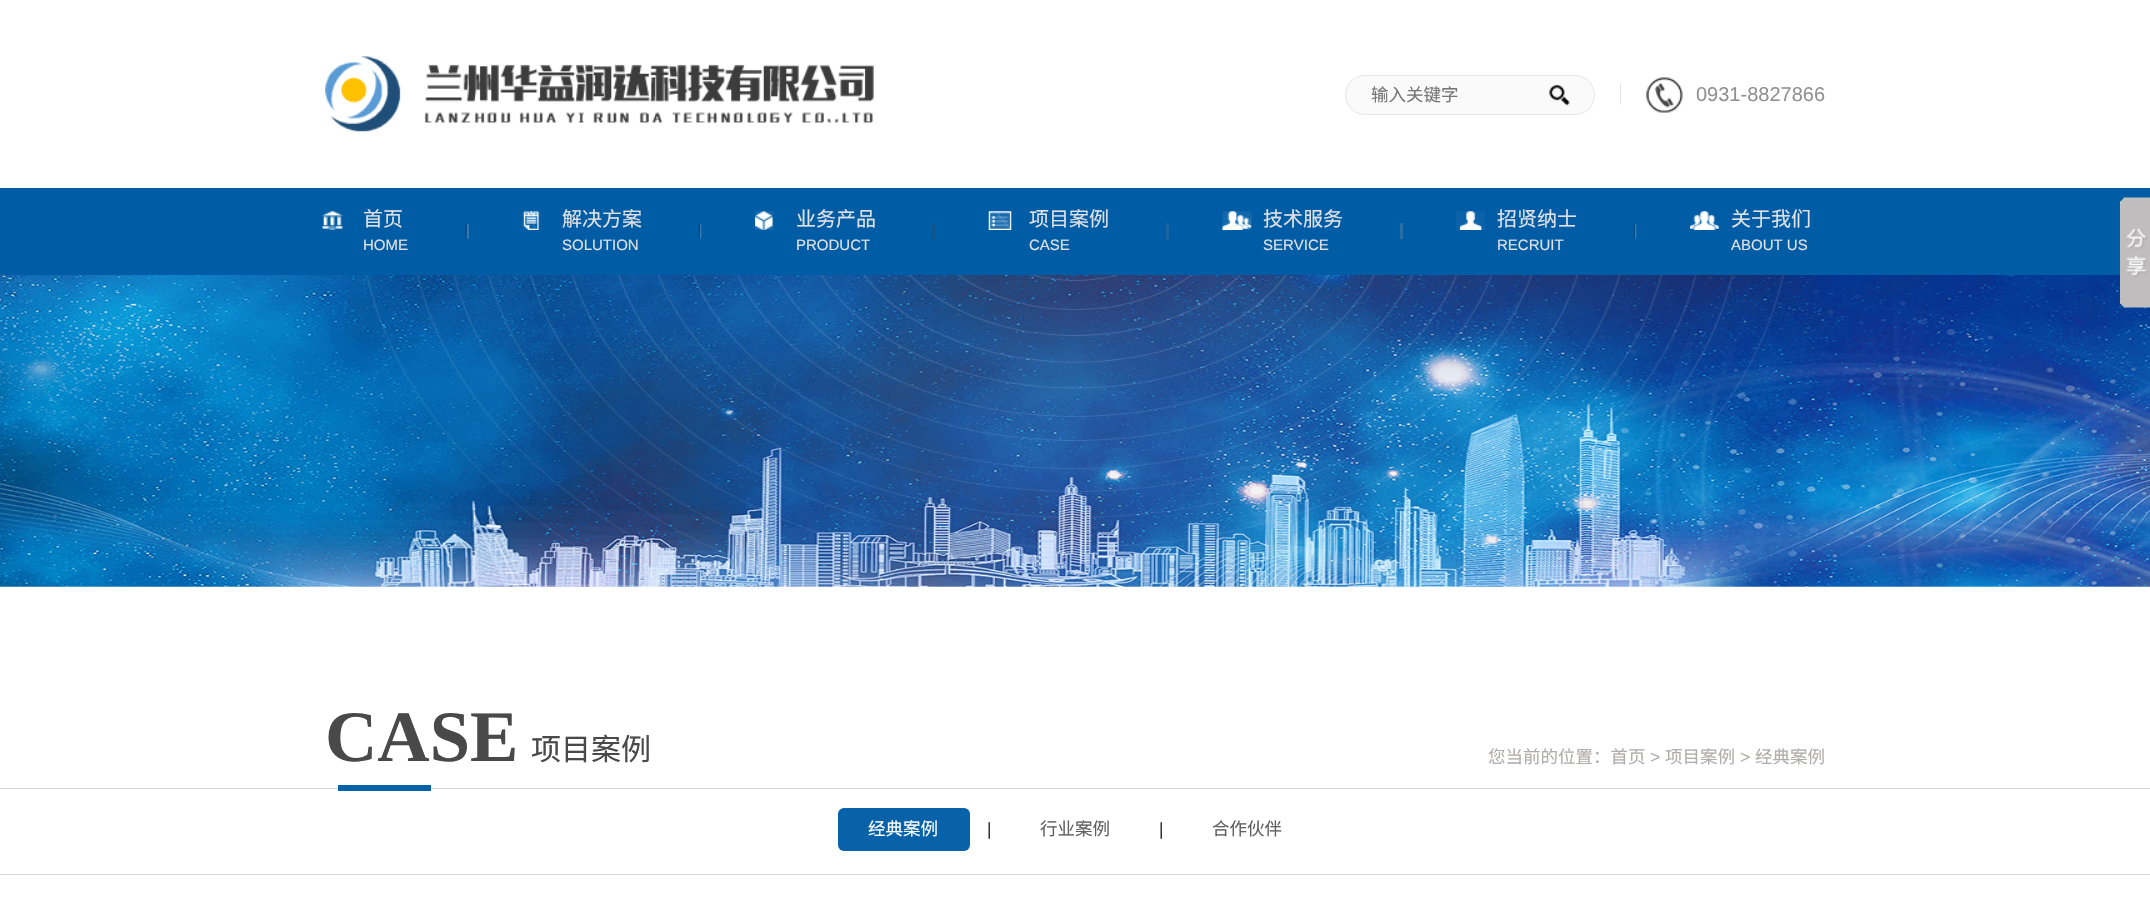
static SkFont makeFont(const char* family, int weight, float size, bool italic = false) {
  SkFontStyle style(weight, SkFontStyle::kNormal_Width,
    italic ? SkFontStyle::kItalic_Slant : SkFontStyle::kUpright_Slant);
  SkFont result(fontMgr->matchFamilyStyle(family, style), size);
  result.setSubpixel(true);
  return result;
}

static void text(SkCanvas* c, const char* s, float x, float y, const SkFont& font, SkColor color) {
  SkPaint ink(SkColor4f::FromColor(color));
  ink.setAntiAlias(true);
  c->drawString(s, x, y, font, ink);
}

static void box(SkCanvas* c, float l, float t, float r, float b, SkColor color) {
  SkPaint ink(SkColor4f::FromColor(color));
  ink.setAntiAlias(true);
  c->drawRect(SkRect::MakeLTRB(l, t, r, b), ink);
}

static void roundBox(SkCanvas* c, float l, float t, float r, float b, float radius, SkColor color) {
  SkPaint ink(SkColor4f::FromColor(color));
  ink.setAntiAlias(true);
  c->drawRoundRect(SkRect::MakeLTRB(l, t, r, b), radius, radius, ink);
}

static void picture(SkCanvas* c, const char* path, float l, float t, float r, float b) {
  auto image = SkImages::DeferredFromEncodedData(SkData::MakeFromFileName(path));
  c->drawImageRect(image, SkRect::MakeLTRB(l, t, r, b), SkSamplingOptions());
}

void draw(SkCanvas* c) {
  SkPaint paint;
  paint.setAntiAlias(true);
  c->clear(0xffffffff);
  picture(c, "img_01.png", 325, 56, 874, 132);
  paint.setColor(0xfffafafa);
  c->drawRoundRect(SkRect::MakeLTRB(1345.5f, 75.5f, 1594.5f, 114.5f), 19.5f, 19.5f, paint);
  paint.setStyle(SkPaint::kStroke_Style);
  paint.setStrokeWidth(1);
  paint.setColor(0xffe6e6e6);
  c->drawRoundRect(SkRect::MakeLTRB(1345.5f, 75.5f, 1594.5f, 114.5f), 19.5f, 19.5f, paint);
  SkFont face1 = makeFont("Noto Sans CJK SC", 400, 17.5f);
  text(c, "输入关键字", 1371, 101, face1, 0xff757575);
  picture(c, "img_02.png", 1549, 84, 1570, 106);
  box(c, 1620, 83, 1621, 105, 0xffe6e6e6);
  picture(c, "img_03.png", 1646, 77, 1683, 113);
  SkFont face2 = makeFont("Liberation Sans", 400, 20);
  text(c, "0931-8827866", 1696, 101, face2, 0xff919191);
  box(c, 0, 188, 2150, 275, 0xff005ca5);
  picture(c, "img_04.png", 322, 211, 343, 230);
  SkFont face3 = makeFont("Noto Sans CJK SC", 400, 20);
  text(c, "首页", 363, 226, face3, 0xffe0e1e4);
  SkFont face4 = makeFont("Liberation Sans", 400, 15);
  text(c, "HOME", 363, 250, face4, 0xffe0e1e4);
  picture(c, "img_05.png", 465, 223, 469, 239);
  picture(c, "img_06.png", 522, 211, 541, 230);
  text(c, "解决方案", 562, 226, face3, 0xffe0e1e4);
  text(c, "SOLUTION", 562, 250, face4, 0xffe0e1e4);
  picture(c, "img_07.png", 698, 223, 702, 239);
  picture(c, "img_08.png", 755, 211, 774, 230);
  text(c, "业务产品", 796, 226, face3, 0xffe0e1e4);
  text(c, "PRODUCT", 796, 250, face4, 0xffe0e1e4);
  box(c, 932, 223, 935, 239, 0xff0f568e);
  picture(c, "img_09.png", 988, 211, 1012, 230);
  text(c, "项目案例", 1029, 226, face3, 0xffe0e1e4);
  text(c, "CASE", 1029, 250, face4, 0xffe0e1e4);
  box(c, 1166, 223, 1169, 239, 0xff1e659d);
  picture(c, "img_10.png", 1222, 211, 1252, 230);
  text(c, "技术服务", 1263, 226, face3, 0xffe0e1e4);
  text(c, "SERVICE", 1263, 250, face4, 0xffe0e1e4);
  box(c, 1400, 223, 1403, 239, 0xff286fa7);
  picture(c, "img_11.png", 1456, 211, 1485, 230);
  text(c, "招贤纳士", 1497, 226, face3, 0xffe0e1e4);
  text(c, "RECRUIT", 1497, 250, face4, 0xffe0e1e4);
  picture(c, "img_07.png", 1633, 223, 1637, 239);
  picture(c, "img_12.png", 1690, 211, 1719, 230);
  text(c, "关于我们", 1731, 226, face3, 0xffe0e1e4);
  text(c, "ABOUT US", 1731, 250, face4, 0xffe0e1e4);
  picture(c, "img_14.png", 0, 275, 2150, 588);
  picture(c, "img_13.png", 2120, 197, 2150, 308);
  box(c, 0, 874, 2150, 875, 0xffd8d9d8);
  SkFont face5 = makeFont("Liberation Serif", 700, 72.5f);
  text(c, "CASE", 325, 761, face5, 0xff494949);
  SkFont face6 = makeFont("Noto Sans CJK SC", 400, 30);
  text(c, "项目案例", 531, 760, face6, 0xff494949);
  text(c, "您当前的位置：首页", 1488, 763, face1, 0xffb0aeac);
  SkFont face7 = makeFont("Liberation Sans", 400, 17.5f);
  text(c, ">", 1650, 763, face7, 0xffb0aeac);
  text(c, "项目案例", 1665, 763, face1, 0xffb0aeac);
  text(c, ">", 1740, 763, face7, 0xffb0aeac);
  text(c, "经典案例", 1755, 763, face1, 0xffb0aeac);
  box(c, 0, 788, 2150, 789, 0xffd6d6d6);
  box(c, 338, 785, 431, 791, 0xff0862a9);
  roundBox(c, 838, 808, 970, 851, 6, 0xff0862a9);
  text(c, "经典案例", 868, 835, face1, 0xffffffff);
  text(c, "|", 987, 835, face7, 0xff333333);
  text(c, "行业案例", 1040, 835, face1, 0xff5f5f5f);
  text(c, "|", 1159, 835, face7, 0xff333333);
  text(c, "合作伙伴", 1212, 835, face1, 0xff5f5f5f);
}
